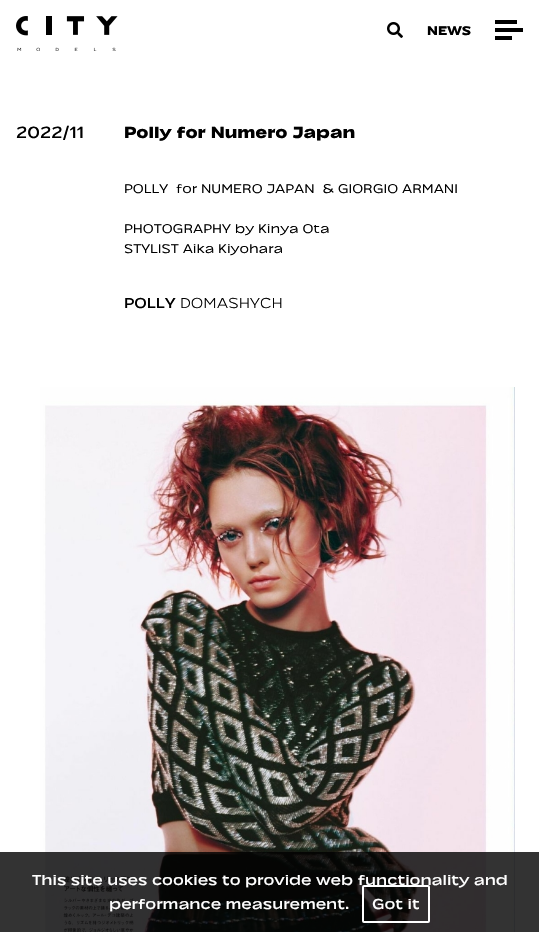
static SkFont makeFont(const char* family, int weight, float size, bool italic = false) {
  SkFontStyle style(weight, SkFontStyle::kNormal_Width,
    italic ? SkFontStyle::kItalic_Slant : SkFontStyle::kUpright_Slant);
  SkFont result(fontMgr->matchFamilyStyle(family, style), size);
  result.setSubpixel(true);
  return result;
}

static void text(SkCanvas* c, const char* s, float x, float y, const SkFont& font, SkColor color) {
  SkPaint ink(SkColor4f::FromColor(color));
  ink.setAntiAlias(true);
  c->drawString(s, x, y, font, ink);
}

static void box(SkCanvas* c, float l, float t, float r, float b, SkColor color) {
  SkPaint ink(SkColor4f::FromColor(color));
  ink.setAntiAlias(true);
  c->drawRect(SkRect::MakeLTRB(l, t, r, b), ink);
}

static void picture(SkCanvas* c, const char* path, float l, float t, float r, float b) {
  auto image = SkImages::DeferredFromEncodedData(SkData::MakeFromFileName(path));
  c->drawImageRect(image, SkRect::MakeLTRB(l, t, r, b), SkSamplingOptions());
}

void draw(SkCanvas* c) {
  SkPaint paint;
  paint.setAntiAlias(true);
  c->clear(0xffffffff);
  picture(c, "img_01.png", 16, 16, 118, 51);
  picture(c, "img_02.png", 387, 22, 403, 38);
  SkFont face1 = makeFont("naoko", 700, 14);
  text(c, "NEWS", 427, 35, face1, 0xff000000);
  box(c, 495, 20, 517, 24, 0xff000000);
  box(c, 495, 28, 523, 32, 0xff000000);
  box(c, 495, 36, 512, 40, 0xff000000);
  SkFont face2 = makeFont("naoko", 400, 18);
  text(c, "2022/11", 16, 138, face2, 0xff000000);
  SkFont face3 = makeFont("naoko", 700, 18);
  text(c, "Polly for Numero Japan", 124, 138, face3, 0xff000000);
  SkFont face4 = makeFont("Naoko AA", 300, 14);
  text(c, "POLLY  for NUMERO JAPAN  & GIORGIO ARMANI", 124, 193, face4, 0xff000000);
  text(c, "PHOTOGRAPHY by Kinya Ota", 124, 233, face4, 0xff000000);
  text(c, "STYLIST Aika Kiyohara", 124, 253, face4, 0xff000000);
  SkFont face5 = makeFont("naoko", 400, 16);
  text(c, "POLLY", 124, 308, face5, 0xff000000);
  SkFont face6 = makeFont("Naoko AA", 200, 16);
  text(c, "DOMASHYCH", 180, 308, face6, 0xff000000);
  picture(c, "img_03.png", 40, 387, 515, 932);
  box(c, 0, 852, 539, 932, 0xcc000000);
  text(c, "This site uses cookies to provide web functionality and", 32, 885, face5, 0xffffffff);
  text(c, "performance measurement.", 109, 909, face5, 0xffffffff);
  paint.setStyle(SkPaint::kStroke_Style);
  paint.setStrokeWidth(2);
  paint.setColor(0xffffffff);
  c->drawRoundRect(SkRect::MakeLTRB(363, 886, 429, 922), 1, 1, paint);
  text(c, "Got it", 372, 909, face5, 0xffffffff);
}
